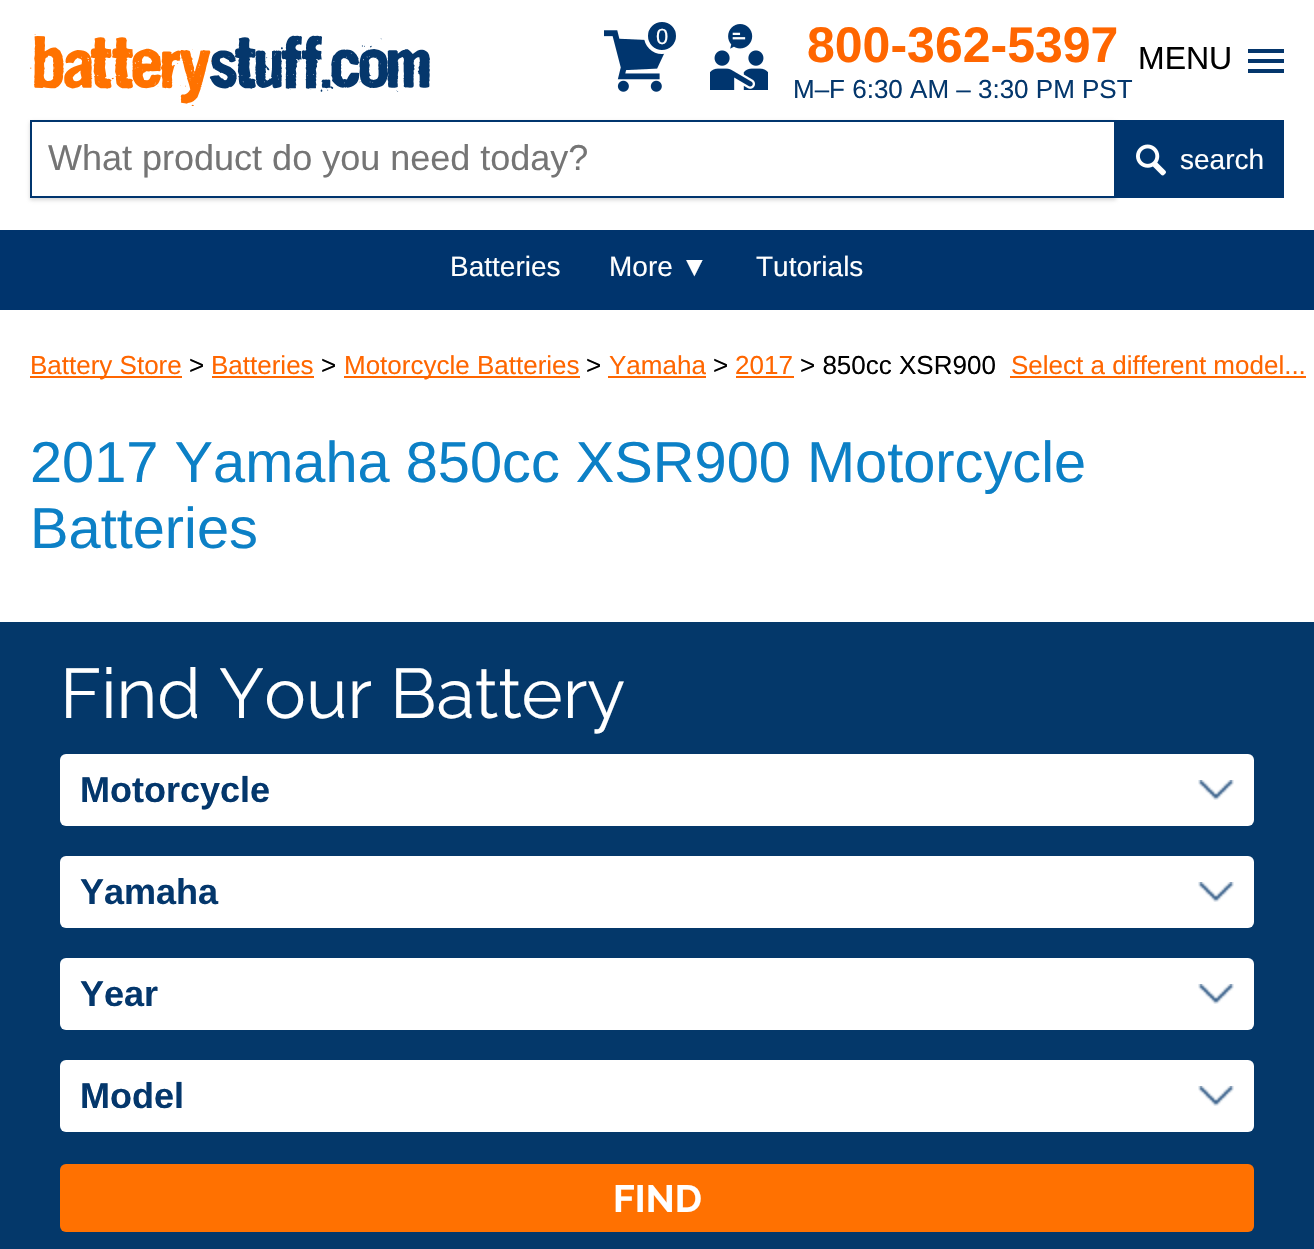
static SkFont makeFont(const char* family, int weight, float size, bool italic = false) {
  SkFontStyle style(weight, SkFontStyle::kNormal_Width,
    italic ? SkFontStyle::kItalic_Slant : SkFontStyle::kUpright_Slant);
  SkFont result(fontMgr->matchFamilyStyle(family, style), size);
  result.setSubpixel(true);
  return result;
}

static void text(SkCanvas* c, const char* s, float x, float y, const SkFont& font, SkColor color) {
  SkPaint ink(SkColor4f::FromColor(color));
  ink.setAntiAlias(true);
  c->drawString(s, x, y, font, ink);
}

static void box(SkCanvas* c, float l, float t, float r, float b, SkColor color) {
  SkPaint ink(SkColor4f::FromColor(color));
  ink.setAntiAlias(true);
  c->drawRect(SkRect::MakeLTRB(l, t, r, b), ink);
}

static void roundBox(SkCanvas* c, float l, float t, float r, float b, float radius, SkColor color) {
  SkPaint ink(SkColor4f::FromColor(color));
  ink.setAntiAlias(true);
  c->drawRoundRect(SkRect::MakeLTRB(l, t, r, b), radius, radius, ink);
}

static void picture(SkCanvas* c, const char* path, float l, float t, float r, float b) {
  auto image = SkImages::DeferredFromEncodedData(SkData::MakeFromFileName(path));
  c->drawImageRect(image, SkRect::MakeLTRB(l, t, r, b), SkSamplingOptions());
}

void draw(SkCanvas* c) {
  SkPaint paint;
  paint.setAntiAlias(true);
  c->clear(0xffffffff);
  picture(c, "img_01.png", 30, 34, 430, 106);
  picture(c, "img_02.png", 604, 30, 665, 92);
  paint.setColor(0xff00356e);
  c->drawCircle(662, 36, 16, paint);
  paint.setStyle(SkPaint::kStroke_Style);
  paint.setStrokeWidth(4);
  paint.setColor(0xffffffff);
  c->drawCircle(662, 36, 16, paint);
  SkFont face1 = makeFont("Liberation Sans", 400, 22);
  text(c, "0", 656, 44, face1, 0xffffffff);
  picture(c, "img_03.png", 710, 24, 768, 90);
  SkFont face2 = makeFont("Liberation Sans", 700, 50);
  text(c, "800-362-5397", 807, 62, face2, 0xffff6600);
  SkFont face3 = makeFont("Liberation Sans", 400, 26);
  text(c, "M–F 6:30 AM – 3:30 PM PST", 793, 98, face3, 0xff04376c);
  SkFont face4 = makeFont("Liberation Sans", 400, 32);
  text(c, "MENU", 1138, 69, face4, 0xff000000);
  box(c, 1248, 49, 1284, 53, 0xff04366c);
  box(c, 1248, 59, 1284, 63, 0xff04366c);
  box(c, 1248, 69, 1284, 73, 0xff04366c);
  c->save();
  c->clipPath(SkPathBuilder(SkPathFillType::kEvenOdd).moveTo(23, 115).lineTo(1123, 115).lineTo(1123, 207).lineTo(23, 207).close().moveTo(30, 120).lineTo(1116, 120).lineTo(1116, 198).lineTo(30, 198).close().detach(), true);
  paint.setStyle(SkPaint::kFill_Style);
  paint.setColor(0x80aaaaaa);
  paint.setMaskFilter(SkMaskFilter::MakeBlur(kNormal_SkBlurStyle, 2));
  c->drawRect(SkRect::MakeLTRB(30, 122, 1116, 200), paint);
  paint.setMaskFilter(nullptr);
  c->restore();
  paint.setStyle(SkPaint::kStroke_Style);
  paint.setStrokeWidth(2);
  paint.setColor(0xff00356e);
  c->drawRect(SkRect::MakeLTRB(31, 121, 1115, 197), paint);
  SkFont face5 = makeFont("Liberation Sans", 400, 36);
  text(c, "What product do you need today?", 48, 170, face5, 0xff757575);
  box(c, 1116, 120, 1284, 198, 0xff00356e);
  picture(c, "img_04.png", 1136, 144, 1166, 176);
  SkFont face6 = makeFont("Liberation Sans", 400, 28);
  text(c, "search", 1180, 169, face6, 0xffffffff);
  box(c, 0, 230, 1314, 310, 0xff00346d);
  text(c, "Batteries", 450, 276, face6, 0xffffffff);
  text(c, "More ▼", 609, 276, face6, 0xffffffff);
  text(c, "Tutorials", 756, 276, face6, 0xffffffff);
  box(c, 30, 376, 182, 378, 0xffff6600);
  text(c, "Battery Store", 30, 374, face3, 0xffff6600);
  text(c, ">", 189, 374, face3, 0xff000000);
  text(c, "Batteries", 211, 374, face3, 0xffff6600);
  box(c, 212, 376, 314, 378, 0xffff6600);
  text(c, ">", 321, 374, face3, 0xff000000);
  box(c, 344, 376, 580, 378, 0xffff6600);
  text(c, "Motorcycle Batteries", 344, 374, face3, 0xffff6600);
  text(c, ">", 586, 374, face3, 0xff000000);
  text(c, "Yamaha", 609, 374, face3, 0xffff6600);
  box(c, 608, 376, 706, 378, 0xffff6600);
  text(c, ">", 713, 374, face3, 0xff000000);
  text(c, "2017", 735, 374, face3, 0xffff6600);
  box(c, 736, 376, 794, 378, 0xffff6600);
  text(c, "> 850cc XSR900", 800, 374, face3, 0xff000000);
  text(c, "Select a different model...", 1011, 374, face3, 0xffff6600);
  box(c, 1010, 376, 1306, 378, 0xffff6600);
  SkFont face7 = makeFont("Liberation Sans", 400, 57.75f);
  text(c, "2017 Yamaha 850cc XSR900 Motorcycle", 30, 482, face7, 0xff0c80c6);
  text(c, "Batteries", 30, 548, face7, 0xff0c80c6);
  box(c, 0, 622, 1314, 1249, 0xff04386a);
  SkFont face8 = makeFont("Raleway", 400, 70);
  text(c, "Find Your Battery", 60, 718, face8, 0xffffffff);
  roundBox(c, 60, 754, 1254, 826, 6, 0xffffffff);
  picture(c, "img_05.png", 1198, 780, 1234, 800);
  SkFont face9 = makeFont("Liberation Sans", 700, 36);
  text(c, "Motorcycle", 80, 802, face9, 0xff04376c);
  roundBox(c, 60, 856, 1254, 928, 6, 0xffffffff);
  picture(c, "img_05.png", 1198, 882, 1234, 902);
  text(c, "Yamaha", 80, 904, face9, 0xff04376c);
  roundBox(c, 60, 958, 1254, 1030, 6, 0xffffffff);
  picture(c, "img_05.png", 1198, 984, 1234, 1004);
  text(c, "Year", 80, 1006, face9, 0xff04376c);
  roundBox(c, 60, 1060, 1254, 1132, 6, 0xffffffff);
  picture(c, "img_05.png", 1198, 1086, 1234, 1106);
  text(c, "Model", 80, 1108, face9, 0xff04376c);
  roundBox(c, 60, 1164, 1254, 1232, 6, 0xffff7101);
  SkFont face10 = makeFont("Raleway", 700, 38);
  text(c, "FIND", 613, 1212, face10, 0xffffffff);
}
